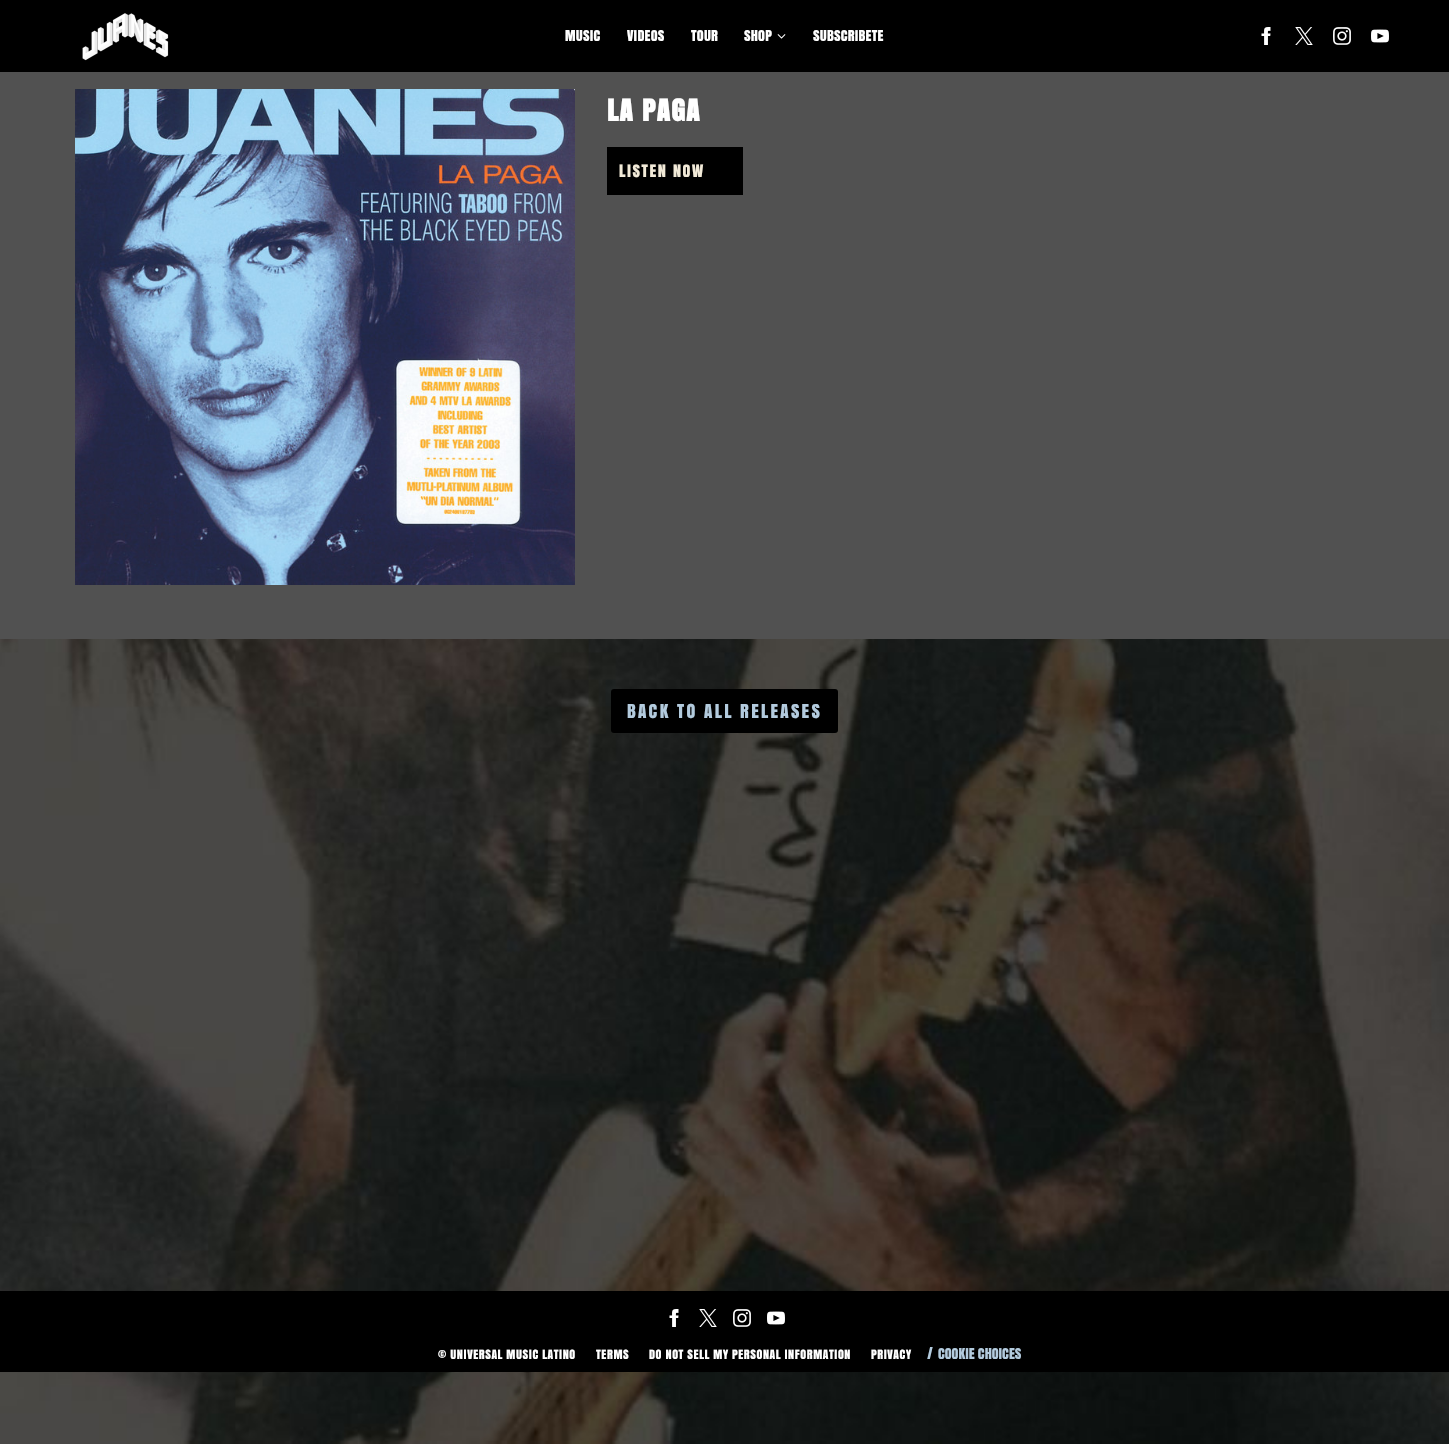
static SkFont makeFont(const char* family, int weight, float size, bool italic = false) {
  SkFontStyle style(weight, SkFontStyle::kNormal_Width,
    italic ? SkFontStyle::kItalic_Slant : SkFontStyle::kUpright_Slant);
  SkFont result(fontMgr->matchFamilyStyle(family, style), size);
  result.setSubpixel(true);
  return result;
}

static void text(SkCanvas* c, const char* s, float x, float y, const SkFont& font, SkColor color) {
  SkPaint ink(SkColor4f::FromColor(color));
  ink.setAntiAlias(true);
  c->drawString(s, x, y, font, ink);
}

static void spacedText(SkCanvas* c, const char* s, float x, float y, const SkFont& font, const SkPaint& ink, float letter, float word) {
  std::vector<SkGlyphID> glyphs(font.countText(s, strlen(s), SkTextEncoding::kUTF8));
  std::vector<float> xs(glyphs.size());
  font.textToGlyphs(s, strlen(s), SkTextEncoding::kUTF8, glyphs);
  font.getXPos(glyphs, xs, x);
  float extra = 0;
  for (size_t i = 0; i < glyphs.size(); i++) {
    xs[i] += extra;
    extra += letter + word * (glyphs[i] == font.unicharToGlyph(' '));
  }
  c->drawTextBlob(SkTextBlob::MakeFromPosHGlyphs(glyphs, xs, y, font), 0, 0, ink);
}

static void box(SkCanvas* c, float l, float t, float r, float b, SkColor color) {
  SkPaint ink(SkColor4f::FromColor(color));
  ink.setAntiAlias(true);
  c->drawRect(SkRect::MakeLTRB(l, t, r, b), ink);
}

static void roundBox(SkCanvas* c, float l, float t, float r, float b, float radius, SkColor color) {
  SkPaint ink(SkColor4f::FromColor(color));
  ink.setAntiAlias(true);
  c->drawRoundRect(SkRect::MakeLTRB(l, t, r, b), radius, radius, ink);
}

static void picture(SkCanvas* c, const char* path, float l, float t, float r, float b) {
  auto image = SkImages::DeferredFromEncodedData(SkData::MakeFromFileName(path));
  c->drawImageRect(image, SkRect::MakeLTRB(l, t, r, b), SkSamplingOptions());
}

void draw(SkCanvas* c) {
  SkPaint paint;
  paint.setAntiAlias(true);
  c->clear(0xffffffff);
  box(c, 0, 0, 1449, 72, 0xff000000);
  picture(c, "img_01.png", 82, 13, 169, 61);
  SkFont face1 = makeFont("Anton", 400, 14);
  paint.setColor(0xffffffff);
  spacedText(c, "MUSIC", 565, 41, face1, paint, 0.25f, 0);
  spacedText(c, "VIDEOS", 627, 41, face1, paint, 0.25f, 0);
  spacedText(c, "TOUR", 691, 41, face1, paint, 0.25f, 0);
  spacedText(c, "SHOP", 744, 41, face1, paint, 0.25f, 0);
  picture(c, "img_02.png", 777, 34, 786, 39);
  spacedText(c, "SUBSCRIBETE", 813, 41, face1, paint, 0.25f, 0);
  picture(c, "img_03.png", 1261, 27, 1271, 45);
  picture(c, "img_04.png", 1295, 27, 1313, 45);
  picture(c, "img_05.png", 1333, 27, 1351, 45);
  picture(c, "img_06.png", 1371, 29, 1389, 43);
  box(c, 0, 72, 1449, 639, 0xff515151);
  picture(c, "img_07.png", 75, 89, 575, 585);
  SkFont face2 = makeFont("Anton", 700, 28);
  spacedText(c, "LA PAGA", 607, 121, face2, paint, 1.5f, 0);
  box(c, 607, 147, 743, 195, 0xff000000);
  SkFont face3 = makeFont("Anton", 400, 16);
  paint.setColor(0xfff2ead8);
  spacedText(c, "LISTEN NOW", 619, 177, face3, paint, 1.6f, 0);
  picture(c, "img_08.png", 0, 639, 1449, 1444);
  roundBox(c, 611, 689, 838, 733, 3, 0xff000000);
  SkFont face4 = makeFont("Anton", 400, 18);
  paint.setColor(0xffb3cbde);
  spacedText(c, "BACK TO ALL RELEASES", 627, 718, face4, paint, 2.3f, 0);
  box(c, 0, 1291, 1449, 1372, 0xff000000);
  picture(c, "img_03.png", 669, 1309, 679, 1327);
  picture(c, "img_04.png", 699, 1309, 717, 1327);
  picture(c, "img_05.png", 733, 1309, 751, 1327);
  picture(c, "img_06.png", 767, 1311, 785, 1325);
  SkFont face5 = makeFont("Anton", 400, 12);
  paint.setColor(0xffffffff);
  spacedText(c, "© UNIVERSAL MUSIC LATINO", 438, 1359, face5, paint, 0.6f, 0);
  spacedText(c, "TERMS", 596, 1359, face5, paint, 0.6f, 0);
  spacedText(c, "DO NOT SELL MY PERSONAL INFORMATION", 649, 1359, face5, paint, 0.6f, 0);
  spacedText(c, "PRIVACY", 871, 1359, face5, paint, 0.6f, 0);
  text(c, "/", 927, 1359, face1, 0xffb3cbde);
  text(c, "COOKIE CHOICES", 938, 1359, face1, 0xffb3cbde);
}
